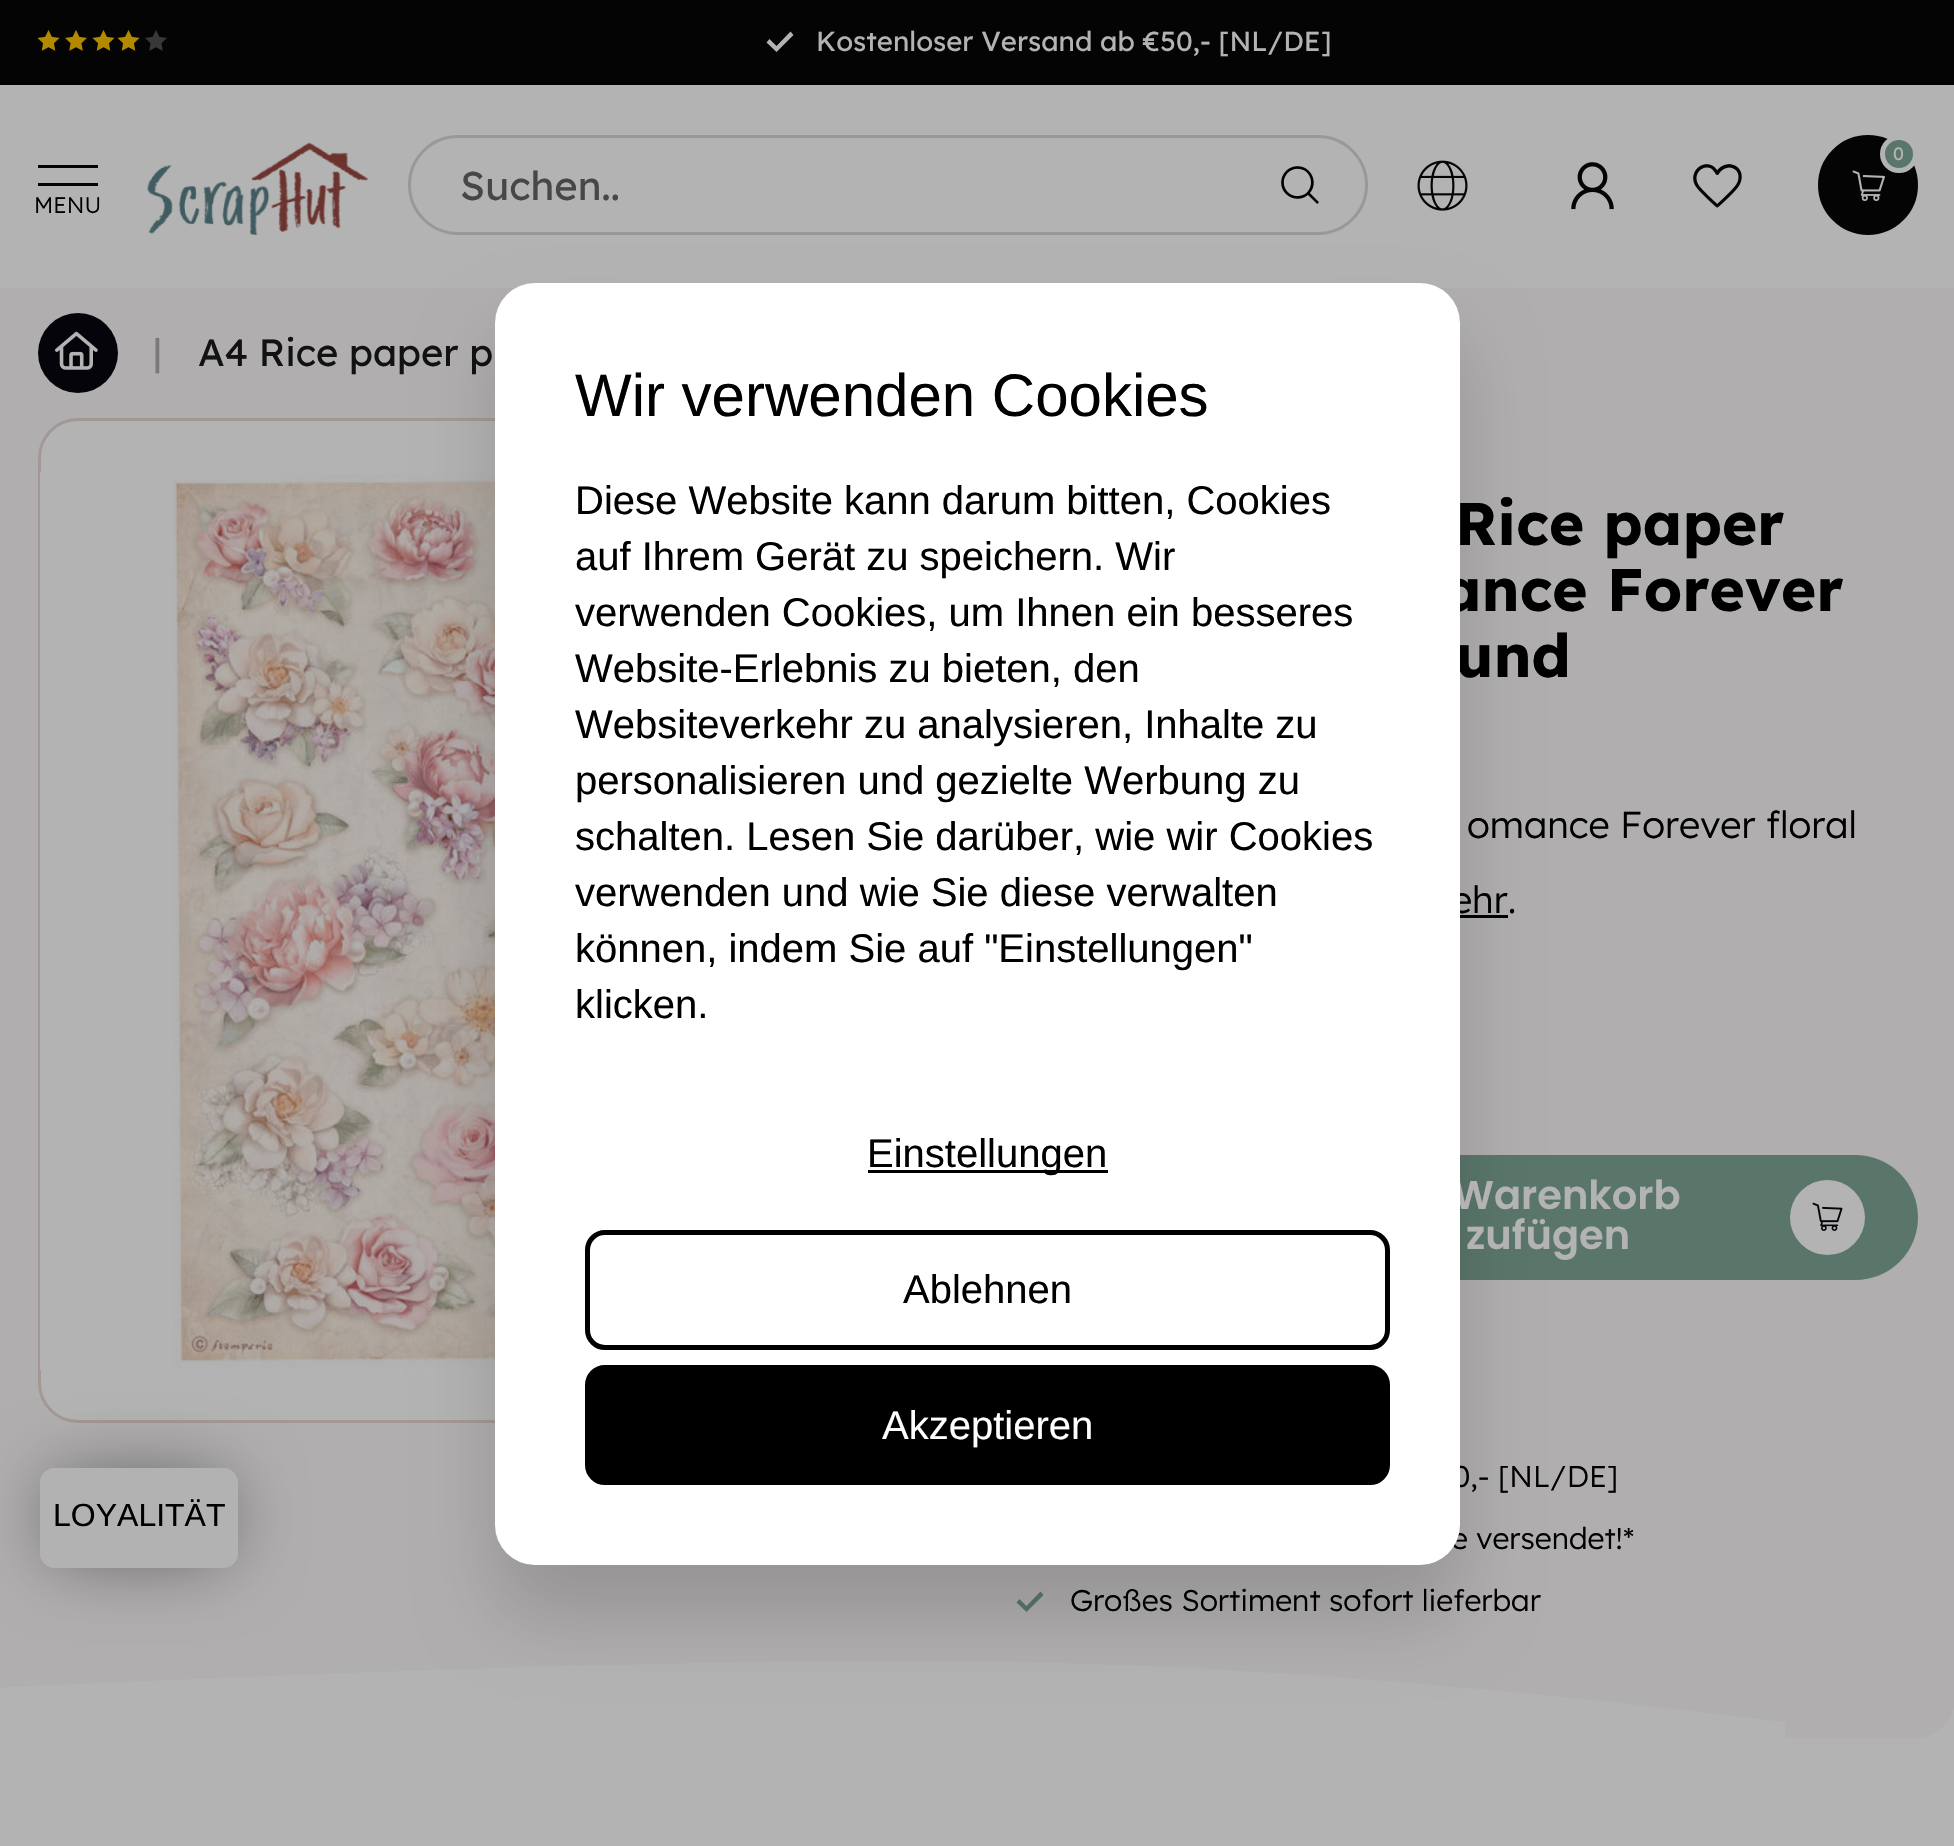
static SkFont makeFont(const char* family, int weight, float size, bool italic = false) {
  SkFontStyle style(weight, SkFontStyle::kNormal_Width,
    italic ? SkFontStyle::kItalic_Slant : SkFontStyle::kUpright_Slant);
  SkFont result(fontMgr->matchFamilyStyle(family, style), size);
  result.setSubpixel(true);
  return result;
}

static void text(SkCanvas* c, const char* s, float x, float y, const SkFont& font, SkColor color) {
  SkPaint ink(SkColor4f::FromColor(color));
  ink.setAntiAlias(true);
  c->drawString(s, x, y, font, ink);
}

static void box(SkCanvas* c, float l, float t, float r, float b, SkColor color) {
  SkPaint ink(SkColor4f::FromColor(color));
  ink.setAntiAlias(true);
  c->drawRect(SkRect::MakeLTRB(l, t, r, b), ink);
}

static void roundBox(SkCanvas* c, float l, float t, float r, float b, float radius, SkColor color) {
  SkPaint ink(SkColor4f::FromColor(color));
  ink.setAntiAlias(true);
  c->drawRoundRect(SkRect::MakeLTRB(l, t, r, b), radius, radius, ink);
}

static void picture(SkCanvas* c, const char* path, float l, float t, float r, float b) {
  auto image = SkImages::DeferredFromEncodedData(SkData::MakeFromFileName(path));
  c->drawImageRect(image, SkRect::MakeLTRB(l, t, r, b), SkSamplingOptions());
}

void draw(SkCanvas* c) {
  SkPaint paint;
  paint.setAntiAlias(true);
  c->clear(0xffb3b3b3);
  box(c, 0, 0, 1954, 85, 0xff040404);
  picture(c, "img_01.png", 37, 30, 60, 51);
  picture(c, "img_02.png", 65, 30, 87, 51);
  picture(c, "img_01.png", 92, 30, 115, 51);
  picture(c, "img_01.png", 117, 30, 140, 51);
  picture(c, "img_03.png", 145, 30, 167, 51);
  paint.setColor(0xffb3b3b3);
  c->drawPath(SkPathBuilder().moveTo(776.5f, 52).lineTo(766.5f, 42.5f).lineTo(769.5f, 39).lineTo(776.5f, 46).lineTo(790.5f, 31.5f).lineTo(793.5f, 35).close().detach(), paint);
  SkFont face1 = makeFont("Lexend", 400, 27.5f);
  text(c, "Kostenloser Versand ab €50,- [NL/DE]", 816, 51, face1, 0xffb3b3b3);
  paint.setColor(0xff040404);
  c->drawCircle(1868, 185, 48.5f, paint);
  paint.setStyle(SkPaint::kStroke_Style);
  paint.setStrokeWidth(3);
  c->drawCircle(1868, 185, 48.5f, paint);
  picture(c, "img_04.png", 1852, 170, 1885, 201);
  paint.setStyle(SkPaint::kFill_Style);
  paint.setColor(0xff5a766a);
  c->drawCircle(1899, 154, 16.5f, paint);
  paint.setStyle(SkPaint::kStroke_Style);
  paint.setStrokeWidth(5);
  paint.setColor(0xffb3b3b3);
  c->drawCircle(1899, 154, 16.5f, paint);
  SkFont face2 = makeFont("Lexend", 400, 18);
  text(c, "0", 1893, 160, face2, 0xffb3b3b3);
  picture(c, "img_05.png", 1417, 160, 1468, 211);
  picture(c, "img_06.png", 1571, 162, 1614, 210);
  picture(c, "img_07.png", 1693, 164, 1742, 208);
  picture(c, "img_08.png", 147, 142, 368, 235);
  paint.setStrokeWidth(3);
  paint.setColor(0xff9b9795);
  c->drawRoundRect(SkRect::MakeLTRB(409.5f, 136.5f, 1366.5f, 233.5f), 48.5f, 48.5f, paint);
  SkFont face3 = makeFont("Lexend", 400, 40);
  text(c, "Suchen..", 460, 200, face3, 0xff474747);
  picture(c, "img_09.png", 1281, 166, 1319, 204);
  box(c, 38, 165, 98, 168, 0xff040404);
  box(c, 38, 183, 98, 186, 0xff040404);
  SkFont face4 = makeFont("Lexend", 300, 22.5f);
  text(c, "MENU", 34, 213, face4, 0xff000000);
  box(c, 0, 288, 1954, 418, 0xffb0aeae);
  paint.setStyle(SkPaint::kFill_Style);
  paint.setColor(0xff04040a);
  c->drawCircle(78, 353, 40, paint);
  picture(c, "img_10.png", 55, 331, 98, 370);
  SkFont face5 = makeFont("Lexend", 400, 38);
  text(c, "|", 153, 366, face5, 0xff7b7a7a);
  text(c, "A4 Rice paper p", 198, 366, face5, 0xff121212);
  paint.setColor(0xffb0aeae);
  c->drawPath(SkPathBuilder().moveTo(0, 418).lineTo(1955, 418).lineTo(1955, 1698).cubicTo(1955, 1720, 1937, 1738, 1915, 1738).lineTo(40, 1738).cubicTo(18, 1738, 0, 1720, 0, 1698).close().detach(), paint);
  paint.setColor(0xffb3b3b3);
  c->drawRoundRect(SkRect::MakeLTRB(39.5f, 419.5f, 938.5f, 1421.5f), 38.5f, 38.5f, paint);
  paint.setStyle(SkPaint::kStroke_Style);
  paint.setColor(0xffa39895);
  c->drawRoundRect(SkRect::MakeLTRB(39.5f, 419.5f, 938.5f, 1421.5f), 38.5f, 38.5f, paint);
  picture(c, "img_11.png", 40, 472, 495, 1371);
  c->save();
  c->clipRect(SkRect::MakeLTRB(0, 1660, 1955, 1738));
  paint.setStyle(SkPaint::kFill_Style);
  paint.setColor(0xffb3b3b3);
  c->drawPath(SkPathBuilder(SkPathFillType::kEvenOdd).moveTo(1785, 1722).cubicTo(1536, 1692, 1242, 1662, 940, 1661).lineTo(873, 1661).cubicTo(533, 1662, 111, 1682, -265, 1700).cubicTo(-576, 1715, -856, 1729, -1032, 1729).cubicTo(-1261, 1729, -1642, 1715, -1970, 1703).cubicTo(-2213, 1694, -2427, 1686, -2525, 1686).lineTo(-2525, 1739).lineTo(1785, 1739).close().detach(), paint);
  c->restore();
  c->save();
  c->clipPath(SkPathBuilder(SkPathFillType::kEvenOdd).moveTo(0, 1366).lineTo(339, 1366).lineTo(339, 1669).lineTo(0, 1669).close().moveTo(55, 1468).lineTo(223, 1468).cubicTo(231.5f, 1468, 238, 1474.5f, 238, 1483).lineTo(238, 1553).cubicTo(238, 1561.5f, 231.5f, 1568, 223, 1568).lineTo(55, 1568).cubicTo(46.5f, 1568, 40, 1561.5f, 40, 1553).lineTo(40, 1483).cubicTo(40, 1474.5f, 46.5f, 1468, 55, 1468).close().detach(), true);
  paint.setColor(0x80000000);
  paint.setMaskFilter(SkMaskFilter::MakeBlur(kNormal_SkBlurStyle, 37.5f));
  c->drawRoundRect(SkRect::MakeLTRB(53, 1480, 225, 1555), 2.5f, 2.5f, paint);
  paint.setMaskFilter(nullptr);
  c->restore();
  roundBox(c, 40, 1468, 238, 1568, 15, 0xe6b3b3b3);
  SkFont face6 = makeFont("Liberation Sans", 400, 32);
  text(c, "LOYALITÄT", 53, 1526, face6, 0xff000000);
  box(c, 1460, 915, 1508, 918, 0xff000000);
  roundBox(c, 1228, 1155, 1918, 1280, 62.5f, 0xff5a766a);
  paint.setColor(0xff5a766a);
  c->drawPath(SkPathBuilder().moveTo(1026.5f, 1612).lineTo(1016.5f, 1602.5f).lineTo(1019.5f, 1599).lineTo(1026.5f, 1606).lineTo(1040.5f, 1591.5f).lineTo(1043.5f, 1595).close().detach(), paint);
  paint.setColor(0x26000000);
  paint.setMaskFilter(SkMaskFilter::MakeBlur(kNormal_SkBlurStyle, 37.5f));
  c->drawRoundRect(SkRect::MakeLTRB(495, 333, 1460, 1615), 40, 40, paint);
  paint.setMaskFilter(nullptr);
  SkFont face7 = makeFont("Lexend", 700, 60);
  text(c, "Rice paper", 1455, 545, face7, 0xff000000);
  text(c, "ance Forever", 1442, 611, face7, 0xff000000);
  text(c, "und", 1455, 677, face7, 0xff000000);
  SkFont face8 = makeFont("Lexend", 300, 37.5f);
  text(c, "ehr.", 1451, 913, face8, 0xff000000);
  SkFont face9 = makeFont("Poppins", 600, 40);
  text(c, "Warenkorb", 1453, 1209, face9, 0xffb3b3b3);
  SkFont face10 = makeFont("Lexend", 300, 30);
  text(c, "0,- [NL/DE]", 1452, 1487, face10, 0xff000000);
  text(c, "e versendet!*", 1451, 1549, face10, 0xff000000);
  roundBox(c, 495, 283, 1460, 1565, 40, 0xffffffff);
  SkFont face11 = makeFont("Liberation Sans", 400, 60);
  text(c, "Wir verwenden Cookies", 575, 416, face11, 0xff000000);
  SkFont face12 = makeFont("Liberation Sans", 400, 40);
  text(c, "Diese Website kann darum bitten, Cookies", 575, 514, face12, 0xff000000);
  text(c, "auf Ihrem Gerät zu speichern. Wir", 575, 570, face12, 0xff000000);
  text(c, "verwenden Cookies, um Ihnen ein besseres", 575, 626, face12, 0xff000000);
  text(c, "Website-Erlebnis zu bieten, den", 575, 682, face12, 0xff000000);
  text(c, "Websiteverkehr zu analysieren, Inhalte zu", 575, 738, face12, 0xff000000);
  text(c, "personalisieren und gezielte Werbung zu", 575, 794, face12, 0xff000000);
  text(c, "schalten. Lesen Sie darüber, wie wir Cookies", 575, 850, face12, 0xff000000);
  text(c, "verwenden und wie Sie diese verwalten", 575, 906, face12, 0xff000000);
  text(c, "können, indem Sie auf \"Einstellungen\"", 575, 962, face12, 0xff000000);
  text(c, "klicken.", 575, 1018, face12, 0xff000000);
  box(c, 868, 1170, 1108, 1173, 0xff000000);
  text(c, "Einstellungen", 867, 1167, face12, 0xff000000);
  paint.setStyle(SkPaint::kStroke_Style);
  paint.setStrokeWidth(5);
  paint.setColor(0xff000000);
  c->drawRoundRect(SkRect::MakeLTRB(587.5f, 1232.5f, 1387.5f, 1347.5f), 17.5f, 17.5f, paint);
  text(c, "Ablehnen", 903, 1303, face12, 0xff000000);
  paint.setStyle(SkPaint::kFill_Style);
  c->drawRoundRect(SkRect::MakeLTRB(587.5f, 1367.5f, 1387.5f, 1482.5f), 17.5f, 17.5f, paint);
  paint.setStyle(SkPaint::kStroke_Style);
  c->drawRoundRect(SkRect::MakeLTRB(587.5f, 1367.5f, 1387.5f, 1482.5f), 17.5f, 17.5f, paint);
  text(c, "Akzeptieren", 882, 1439, face12, 0xffffffff);
  text(c, "omance Forever floral", 1467, 838, face8, 0xff000000);
  text(c, "zufügen", 1466, 1249, face9, 0xffb3b3b3);
  paint.setStyle(SkPaint::kFill_Style);
  paint.setColor(0xffb3b3b3);
  c->drawCircle(1827.5f, 1217.5f, 37.5f, paint);
  picture(c, "img_12.png", 1812, 1202, 1843, 1231);
  text(c, "Großes Sortiment sofort lieferbar", 1070, 1611, face10, 0xff000000);
}
